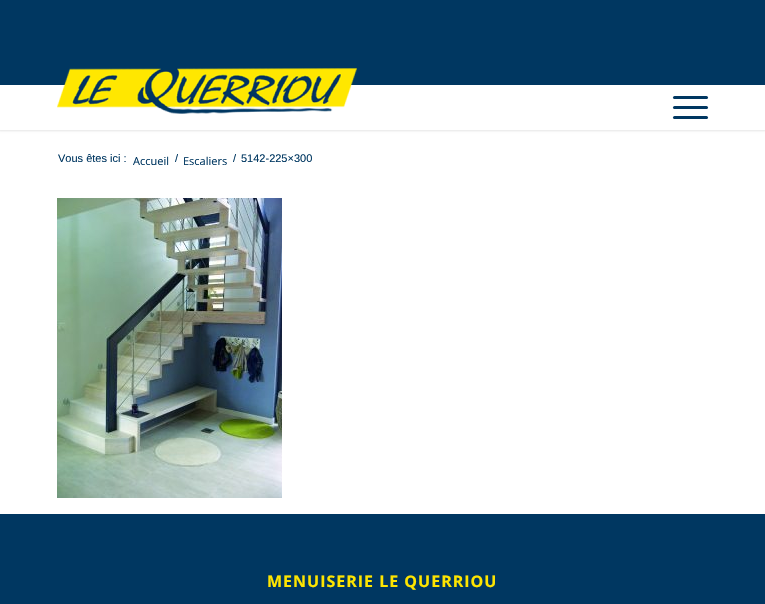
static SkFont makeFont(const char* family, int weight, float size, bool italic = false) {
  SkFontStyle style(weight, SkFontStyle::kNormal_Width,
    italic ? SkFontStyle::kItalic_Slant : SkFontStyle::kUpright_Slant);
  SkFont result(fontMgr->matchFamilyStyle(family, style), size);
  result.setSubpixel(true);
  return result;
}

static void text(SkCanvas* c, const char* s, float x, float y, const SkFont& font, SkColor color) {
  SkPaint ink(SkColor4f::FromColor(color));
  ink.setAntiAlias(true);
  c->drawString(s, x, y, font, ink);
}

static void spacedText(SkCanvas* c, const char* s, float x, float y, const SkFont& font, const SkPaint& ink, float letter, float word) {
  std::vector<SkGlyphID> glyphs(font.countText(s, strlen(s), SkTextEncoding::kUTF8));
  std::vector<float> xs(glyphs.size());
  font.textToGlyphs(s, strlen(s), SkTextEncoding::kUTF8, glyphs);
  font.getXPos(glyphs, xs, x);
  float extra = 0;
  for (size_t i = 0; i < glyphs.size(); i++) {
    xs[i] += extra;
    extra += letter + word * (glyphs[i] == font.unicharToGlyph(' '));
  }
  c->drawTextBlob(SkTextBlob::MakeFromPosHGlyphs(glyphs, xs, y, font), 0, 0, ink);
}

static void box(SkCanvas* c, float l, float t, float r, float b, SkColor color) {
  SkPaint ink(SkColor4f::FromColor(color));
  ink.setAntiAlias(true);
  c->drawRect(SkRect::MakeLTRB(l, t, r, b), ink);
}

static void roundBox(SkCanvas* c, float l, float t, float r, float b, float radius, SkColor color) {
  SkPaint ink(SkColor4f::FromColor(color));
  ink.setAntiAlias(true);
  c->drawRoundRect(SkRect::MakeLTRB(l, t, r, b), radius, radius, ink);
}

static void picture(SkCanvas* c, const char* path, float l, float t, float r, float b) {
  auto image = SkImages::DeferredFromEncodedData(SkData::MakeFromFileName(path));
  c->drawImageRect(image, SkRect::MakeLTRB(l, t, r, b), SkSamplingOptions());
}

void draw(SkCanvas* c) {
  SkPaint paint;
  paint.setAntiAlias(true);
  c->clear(0xffffffff);
  paint.setColor(0x1a000000);
  paint.setMaskFilter(SkMaskFilter::MakeBlur(kNormal_SkBlurStyle, 1));
  c->drawRect(SkRect::MakeLTRB(-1, -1, 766, 131), paint);
  paint.setMaskFilter(nullptr);
  box(c, 0, 0, 765, 85, 0xff003761);
  box(c, 0, 85, 765, 130, 0xffffffff);
  picture(c, "img_01.png", 57, 68, 357, 114);
  roundBox(c, 673, 106, 708, 109, 1.5f, 0xff003761);
  roundBox(c, 673, 96, 708, 99, 1.5f, 0xff003761);
  roundBox(c, 673, 116, 708, 119, 1.5f, 0xff003761);
  SkFont face1 = makeFont("Liberation Sans", 400, 11);
  text(c, "Vous êtes ici :", 58, 162, face1, 0xff003761);
  SkFont face2 = makeFont("Open Sans", 400, 11);
  text(c, "Accueil", 133, 165, face2, 0xff003761);
  text(c, "/", 175, 162, face1, 0xff003761);
  text(c, "Escaliers", 183, 165, face2, 0xff003761);
  text(c, "/", 233, 162, face1, 0xff003761);
  text(c, "5142-225×300", 241, 162, face1, 0xff003761);
  picture(c, "img_02.png", 57, 198, 282, 498);
  box(c, 0, 514, 765, 604, 0xff003761);
  SkFont face3 = makeFont("Open Sans", 700, 16);
  paint.setColor(0xfffee500);
  spacedText(c, "MENUISERIE LE QUERRIOU", 267, 587, face3, paint, 1, 0);
}
